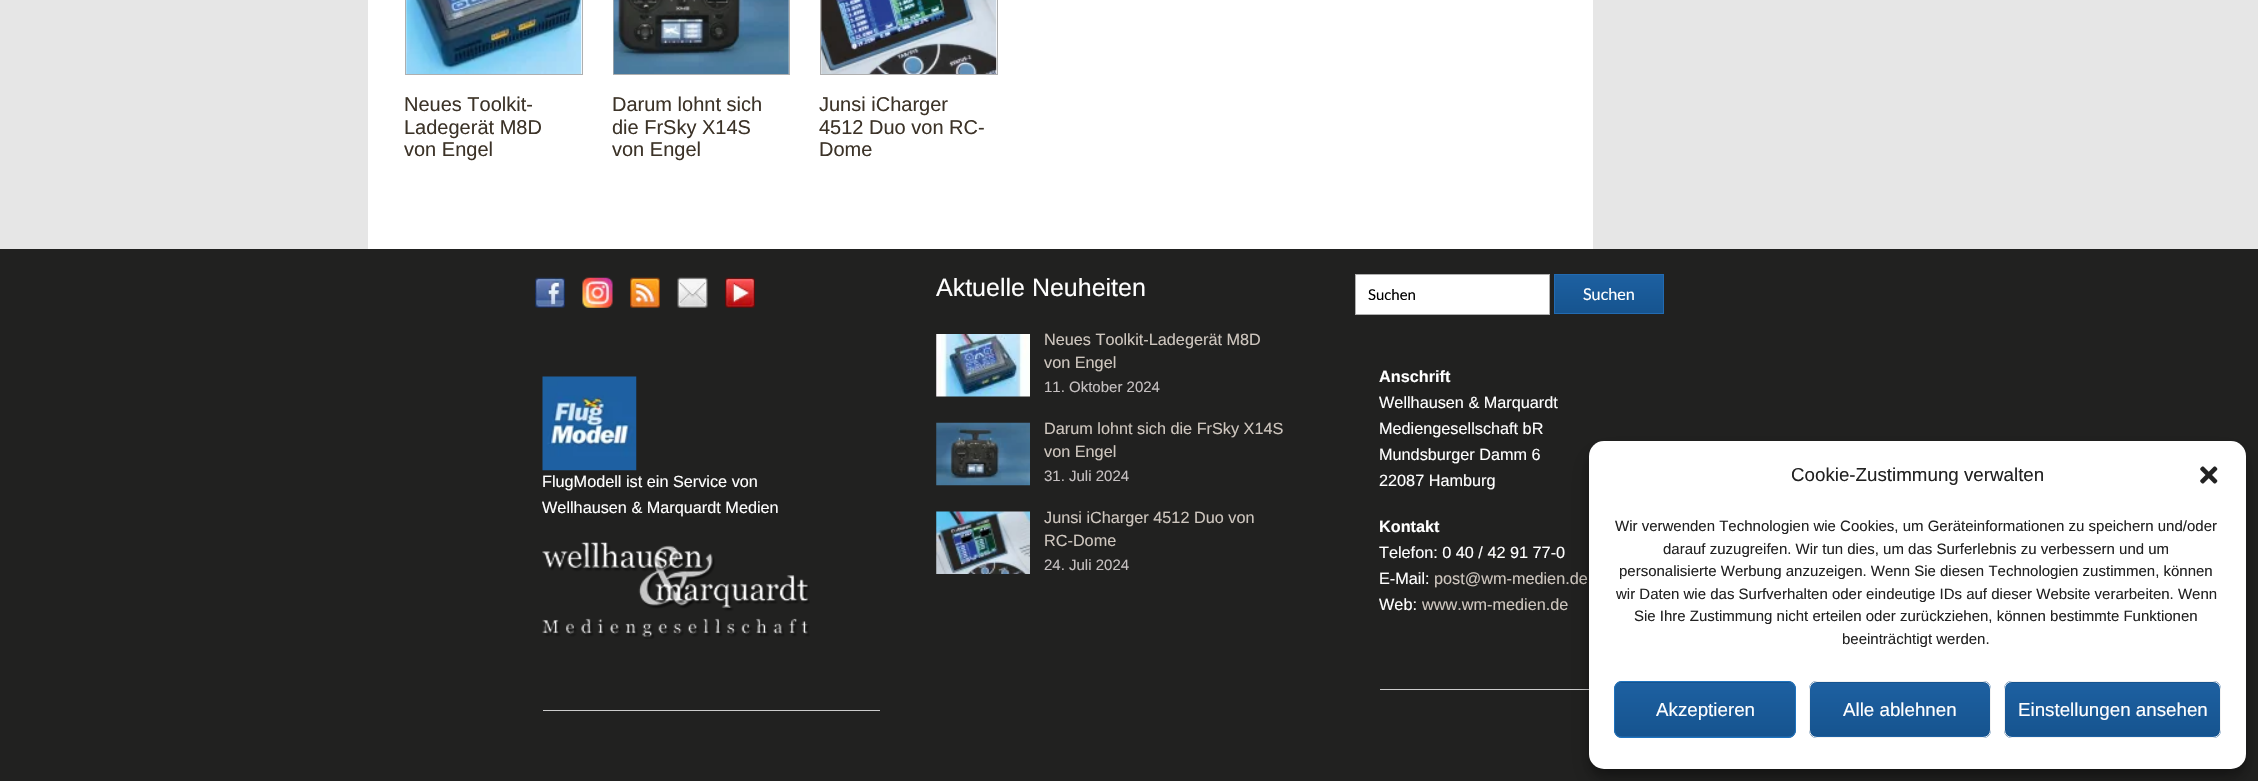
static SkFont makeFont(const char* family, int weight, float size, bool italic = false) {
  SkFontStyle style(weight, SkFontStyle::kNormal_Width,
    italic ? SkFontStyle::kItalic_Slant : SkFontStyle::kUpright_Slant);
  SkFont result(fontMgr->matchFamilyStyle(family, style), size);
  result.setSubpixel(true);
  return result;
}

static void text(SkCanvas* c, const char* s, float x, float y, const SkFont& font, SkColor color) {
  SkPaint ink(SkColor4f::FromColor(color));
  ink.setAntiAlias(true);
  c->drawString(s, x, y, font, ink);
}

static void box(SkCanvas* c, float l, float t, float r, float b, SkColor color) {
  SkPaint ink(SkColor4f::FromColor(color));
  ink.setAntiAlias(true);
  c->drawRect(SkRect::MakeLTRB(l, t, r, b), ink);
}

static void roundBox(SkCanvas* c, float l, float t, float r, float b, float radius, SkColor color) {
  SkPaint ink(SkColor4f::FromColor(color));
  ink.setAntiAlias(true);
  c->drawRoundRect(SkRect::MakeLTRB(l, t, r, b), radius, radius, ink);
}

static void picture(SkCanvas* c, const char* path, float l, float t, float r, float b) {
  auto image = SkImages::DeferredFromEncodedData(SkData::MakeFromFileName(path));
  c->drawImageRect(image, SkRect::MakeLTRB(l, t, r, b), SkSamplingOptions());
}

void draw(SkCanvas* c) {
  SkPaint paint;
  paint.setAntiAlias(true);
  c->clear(0xffe6e6e6);
  box(c, 368, 0, 1593, 249, 0xffffffff);
  paint.setStyle(SkPaint::kStroke_Style);
  paint.setStrokeWidth(1);
  paint.setColor(0xffafafaf);
  c->drawRect(SkRect::MakeLTRB(405.5f, -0.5f, 582.5f, 74.5f), paint);
  picture(c, "img_01.png", 406, 0, 582, 74);
  SkFont face1 = makeFont("Liberation Sans", 400, 20);
  text(c, "Neues Toolkit-", 404, 111, face1, 0xff3c3328);
  text(c, "Ladegerät M8D", 404, 134, face1, 0xff3c3328);
  text(c, "von Engel", 404, 156, face1, 0xff3c3328);
  c->drawRect(SkRect::MakeLTRB(613.5f, -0.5f, 789.5f, 74.5f), paint);
  picture(c, "img_02.png", 613, 0, 789, 74);
  text(c, "Darum lohnt sich", 612, 111, face1, 0xff3c3328);
  text(c, "die FrSky X14S", 612, 134, face1, 0xff3c3328);
  text(c, "von Engel", 612, 156, face1, 0xff3c3328);
  c->drawRect(SkRect::MakeLTRB(820.5f, -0.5f, 997.5f, 74.5f), paint);
  picture(c, "img_03.png", 821, 0, 997, 74);
  text(c, "Junsi iCharger", 819, 111, face1, 0xff3c3328);
  text(c, "4512 Duo von RC-", 819, 134, face1, 0xff3c3328);
  text(c, "Dome", 819, 156, face1, 0xff3c3328);
  box(c, 0, 249, 2258, 781, 0xff212120);
  picture(c, "img_04.png", 535, 277, 565, 308);
  picture(c, "img_05.png", 582, 277, 613, 308);
  picture(c, "img_06.png", 630, 277, 660, 308);
  picture(c, "img_07.png", 677, 277, 708, 308);
  picture(c, "img_08.png", 725, 277, 755, 308);
  picture(c, "img_09.png", 542, 376, 637, 471);
  SkFont face2 = makeFont("Liberation Sans", 400, 16.25f);
  text(c, "FlugModell ist ein Service von", 542, 487, face2, 0xffffffff);
  text(c, "Wellhausen & Marquardt Medien", 542, 513, face2, 0xffffffff);
  picture(c, "img_10.png", 542, 542, 810, 639);
  box(c, 543, 710, 880, 711, 0xffcccccc);
  SkFont face3 = makeFont("Liberation Sans", 400, 25);
  text(c, "Aktuelle Neuheiten", 936, 296, face3, 0xffffffff);
  picture(c, "img_11.png", 936, 334, 1030, 397);
  text(c, "Neues Toolkit-Ladegerät M8D", 1044, 345, face2, 0xffcec6be);
  text(c, "von Engel", 1044, 368, face2, 0xffcec6be);
  SkFont face4 = makeFont("Liberation Sans", 400, 15);
  text(c, "11. Oktober 2024", 1044, 392, face4, 0xffc5c0c1);
  picture(c, "img_12.png", 936, 422, 1030, 486);
  text(c, "Darum lohnt sich die FrSky X14S", 1044, 434, face2, 0xffcec6be);
  text(c, "von Engel", 1044, 457, face2, 0xffcec6be);
  text(c, "31. Juli 2024", 1044, 481, face4, 0xffc5c0c1);
  picture(c, "img_13.png", 936, 511, 1030, 574);
  text(c, "Junsi iCharger 4512 Duo von", 1044, 523, face2, 0xffcec6be);
  text(c, "RC-Dome", 1044, 546, face2, 0xffcec6be);
  text(c, "24. Juli 2024", 1044, 570, face4, 0xffc5c0c1);
  paint.setStyle(SkPaint::kFill_Style);
  paint.setColor(0xffffffff);
  c->drawRect(SkRect::MakeLTRB(1355.5f, 274.5f, 1549.5f, 314.5f), paint);
  paint.setStyle(SkPaint::kStroke_Style);
  paint.setColor(0xffafafaf);
  c->drawRect(SkRect::MakeLTRB(1355.5f, 274.5f, 1549.5f, 314.5f), paint);
  SkFont face5 = makeFont("Lato", 400, 15);
  text(c, "Suchen", 1368, 300, face5, 0xff000000);
  paint.setStyle(SkPaint::kFill_Style);
  {
    const SkColor colors[] = {0xff1d60a1, 0xff16548f};
    const float stops[] = {0, 1};
    const SkPoint ends[] = {{1609, 275}, {1609, 313}};
    paint.setShader(SkGradientShader::MakeLinear(ends, colors, stops, 2, SkTileMode::kClamp));
    paint.setAlpha(255);
  }
  c->drawRect(SkRect::MakeLTRB(1555, 275, 1663, 313), paint);
  paint.setStyle(SkPaint::kStroke_Style);
  paint.setShader(nullptr);
  paint.setColor(0xff226bb2);
  c->drawRect(SkRect::MakeLTRB(1554.5f, 274.5f, 1663.5f, 313.5f), paint);
  SkFont face6 = makeFont("Lato", 400, 16.25f);
  text(c, "Suchen", 1583, 300, face6, 0xffffffff);
  SkFont face7 = makeFont("Liberation Sans", 700, 16.25f);
  text(c, "Anschrift", 1379, 382, face7, 0xffffffff);
  text(c, "Wellhausen & Marquardt", 1379, 408, face2, 0xffffffff);
  text(c, "Mediengesellschaft bR", 1379, 434, face2, 0xffffffff);
  text(c, "Mundsburger Damm 6", 1379, 460, face2, 0xffffffff);
  text(c, "22087 Hamburg", 1379, 486, face2, 0xffffffff);
  text(c, "Kontakt", 1379, 532, face7, 0xffffffff);
  text(c, "Telefon: 0 40 / 42 91 77-0", 1379, 558, face2, 0xffffffff);
  text(c, "E-Mail:", 1379, 584, face2, 0xffffffff);
  text(c, "post@wm-medien.de", 1434, 584, face2, 0xffcec6be);
  text(c, "Web:", 1379, 610, face2, 0xffffffff);
  text(c, "www.wm-medien.de", 1422, 610, face2, 0xffcec6be);
  box(c, 1380, 689, 1589, 690, 0xffcccccc);
  paint.setStyle(SkPaint::kFill_Style);
  paint.setColor(0x3b000000);
  paint.setMaskFilter(SkMaskFilter::MakeBlur(kNormal_SkBlurStyle, 4));
  c->drawRoundRect(SkRect::MakeLTRB(1589, 449, 2246, 776), 15, 15, paint);
  paint.setMaskFilter(nullptr);
  paint.setColor(0x30000000);
  paint.setMaskFilter(SkMaskFilter::MakeBlur(kNormal_SkBlurStyle, 12.5f));
  c->drawRoundRect(SkRect::MakeLTRB(1589, 454, 2246, 781), 15, 15, paint);
  paint.setMaskFilter(nullptr);
  roundBox(c, 1589, 441, 2246, 769, 15, 0xffffffff);
  SkFont face8 = makeFont("Liberation Sans", 400, 18.75f);
  text(c, "Cookie-Zustimmung verwalten", 1791, 481, face8, 0xff222222);
  picture(c, "img_14.png", 2200, 466, 2218, 484);
  text(c, "Wir verwenden Technologien wie Cookies, um Geräteinformationen zu speichern und/oder", 1615, 531, face4, 0xff222222);
  text(c, "darauf zuzugreifen. Wir tun dies, um das Surferlebnis zu verbessern und um", 1663, 554, face4, 0xff222222);
  text(c, "personalisierte Werbung anzuzeigen. Wenn Sie diesen Technologien zustimmen, können", 1619, 576, face4, 0xff222222);
  text(c, "wir Daten wie das Surfverhalten oder eindeutige IDs auf dieser Website verarbeiten. Wenn", 1616, 599, face4, 0xff222222);
  text(c, "Sie Ihre Zustimmung nicht erteilen oder zurückziehen, können bestimmte Funktionen", 1634, 621, face4, 0xff222222);
  text(c, "beeinträchtigt werden.", 1842, 644, face4, 0xff222222);
  c->save();
  c->clipPath(SkPathBuilder().moveTo(1622, 681).lineTo(1788, 681).cubicTo(1792.5f, 681, 1796, 684.5f, 1796, 689).lineTo(1796, 730).cubicTo(1796, 734.5f, 1792.5f, 738, 1788, 738).lineTo(1622, 738).cubicTo(1617.5f, 738, 1614, 734.5f, 1614, 730).lineTo(1614, 689).cubicTo(1614, 684.5f, 1617.5f, 681, 1622, 681).close().detach(), true);
  {
    const SkColor colors[] = {0xff1d60a1, 0xff16548f};
    const float stops[] = {0, 1};
    const SkPoint ends[] = {{1705, 629}, {1705, 683}};
    paint.setShader(SkGradientShader::MakeLinear(ends, colors, stops, 2, SkTileMode::kClamp));
    paint.setAlpha(255);
  }
  c->drawRect(SkRect::MakeLTRB(1614, 681, 1796, 683), paint);
  {
    const SkColor colors[] = {0xff1d60a1, 0xff16548f};
    const float stops[] = {0, 1};
    const SkPoint ends[] = {{1705, 683}, {1705, 736}};
    paint.setShader(SkGradientShader::MakeLinear(ends, colors, stops, 2, SkTileMode::kClamp));
    paint.setAlpha(255);
  }
  c->drawRect(SkRect::MakeLTRB(1614, 683, 1796, 736), paint);
  {
    const SkColor colors[] = {0xff1d60a1, 0xff16548f};
    const float stops[] = {0, 1};
    const SkPoint ends[] = {{1705, 736}, {1705, 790}};
    paint.setShader(SkGradientShader::MakeLinear(ends, colors, stops, 2, SkTileMode::kClamp));
    paint.setAlpha(255);
  }
  c->drawRect(SkRect::MakeLTRB(1614, 736, 1796, 738), paint);
  c->restore();
  paint.setStyle(SkPaint::kStroke_Style);
  paint.setShader(nullptr);
  paint.setColor(0xff1e73be);
  c->drawRoundRect(SkRect::MakeLTRB(1614.5f, 681.5f, 1795.5f, 737.5f), 7.5f, 7.5f, paint);
  text(c, "Akzeptieren", 1656, 716, face8, 0xffffffff);
  c->save();
  c->clipPath(SkPathBuilder().moveTo(1817, 681).lineTo(1983, 681).cubicTo(1987.5f, 681, 1991, 684.5f, 1991, 689).lineTo(1991, 730).cubicTo(1991, 734.5f, 1987.5f, 738, 1983, 738).lineTo(1817, 738).cubicTo(1812.5f, 738, 1809, 734.5f, 1809, 730).lineTo(1809, 689).cubicTo(1809, 684.5f, 1812.5f, 681, 1817, 681).close().detach(), true);
  paint.setStyle(SkPaint::kFill_Style);
  {
    const SkColor colors[] = {0xff1d60a1, 0xff16548f};
    const float stops[] = {0, 1};
    const SkPoint ends[] = {{1900, 629}, {1900, 683}};
    paint.setShader(SkGradientShader::MakeLinear(ends, colors, stops, 2, SkTileMode::kClamp));
    paint.setAlpha(255);
  }
  c->drawRect(SkRect::MakeLTRB(1809, 681, 1991, 683), paint);
  {
    const SkColor colors[] = {0xff1d60a1, 0xff16548f};
    const float stops[] = {0, 1};
    const SkPoint ends[] = {{1900, 683}, {1900, 736}};
    paint.setShader(SkGradientShader::MakeLinear(ends, colors, stops, 2, SkTileMode::kClamp));
    paint.setAlpha(255);
  }
  c->drawRect(SkRect::MakeLTRB(1809, 683, 1991, 736), paint);
  {
    const SkColor colors[] = {0xff1d60a1, 0xff16548f};
    const float stops[] = {0, 1};
    const SkPoint ends[] = {{1900, 736}, {1900, 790}};
    paint.setShader(SkGradientShader::MakeLinear(ends, colors, stops, 2, SkTileMode::kClamp));
    paint.setAlpha(255);
  }
  c->drawRect(SkRect::MakeLTRB(1809, 736, 1991, 738), paint);
  c->restore();
  paint.setStyle(SkPaint::kStroke_Style);
  paint.setShader(nullptr);
  paint.setColor(0xfff2f2f2);
  c->drawRoundRect(SkRect::MakeLTRB(1809.5f, 681.5f, 1990.5f, 737.5f), 7.5f, 7.5f, paint);
  text(c, "Alle ablehnen", 1843, 716, face8, 0xffffffff);
  c->save();
  c->clipPath(SkPathBuilder().moveTo(2012, 681).lineTo(2213, 681).cubicTo(2217.5f, 681, 2221, 684.5f, 2221, 689).lineTo(2221, 730).cubicTo(2221, 734.5f, 2217.5f, 738, 2213, 738).lineTo(2012, 738).cubicTo(2007.5f, 738, 2004, 734.5f, 2004, 730).lineTo(2004, 689).cubicTo(2004, 684.5f, 2007.5f, 681, 2012, 681).close().detach(), true);
  paint.setStyle(SkPaint::kFill_Style);
  {
    const SkColor colors[] = {0xff1d60a1, 0xff16548f};
    const float stops[] = {0, 1};
    const SkPoint ends[] = {{2113, 629}, {2113, 683}};
    paint.setShader(SkGradientShader::MakeLinear(ends, colors, stops, 2, SkTileMode::kClamp));
    paint.setAlpha(255);
  }
  c->drawRect(SkRect::MakeLTRB(2004, 681, 2221, 683), paint);
  {
    const SkColor colors[] = {0xff1d60a1, 0xff16548f};
    const float stops[] = {0, 1};
    const SkPoint ends[] = {{2113, 683}, {2113, 736}};
    paint.setShader(SkGradientShader::MakeLinear(ends, colors, stops, 2, SkTileMode::kClamp));
    paint.setAlpha(255);
  }
  c->drawRect(SkRect::MakeLTRB(2004, 683, 2221, 736), paint);
  {
    const SkColor colors[] = {0xff1d60a1, 0xff16548f};
    const float stops[] = {0, 1};
    const SkPoint ends[] = {{2113, 736}, {2113, 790}};
    paint.setShader(SkGradientShader::MakeLinear(ends, colors, stops, 2, SkTileMode::kClamp));
    paint.setAlpha(255);
  }
  c->drawRect(SkRect::MakeLTRB(2004, 736, 2221, 738), paint);
  c->restore();
  paint.setStyle(SkPaint::kStroke_Style);
  paint.setShader(nullptr);
  paint.setColor(0xfff2f2f2);
  c->drawRoundRect(SkRect::MakeLTRB(2004.5f, 681.5f, 2220.5f, 737.5f), 7.5f, 7.5f, paint);
  text(c, "Einstellungen ansehen", 2018, 716, face8, 0xffffffff);
}
